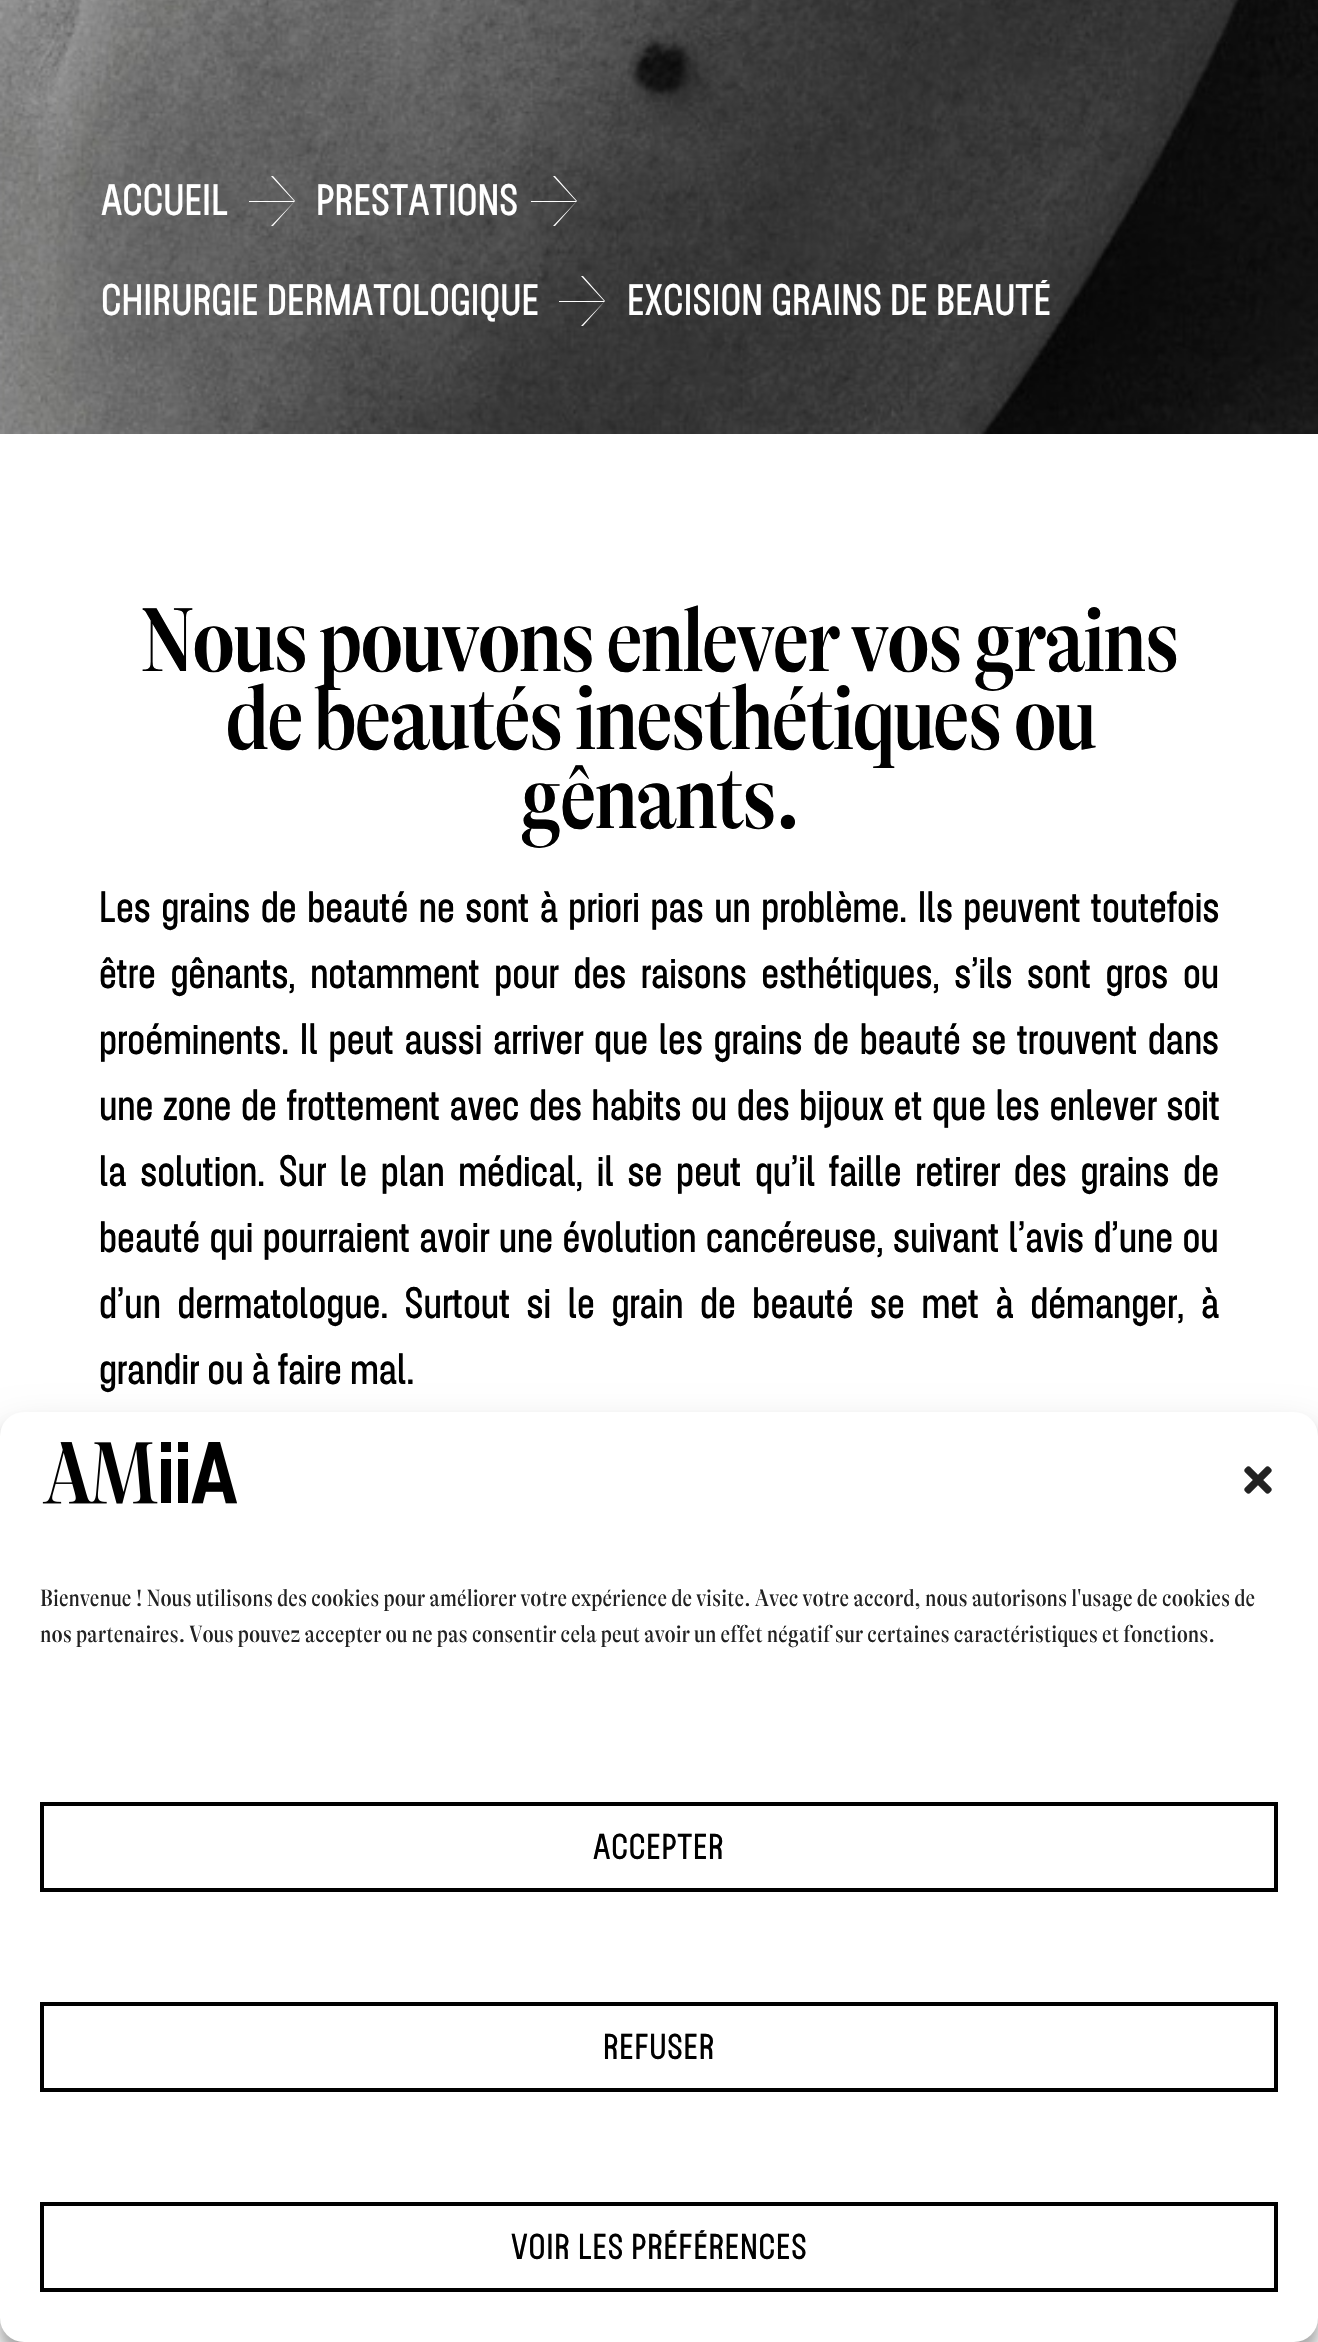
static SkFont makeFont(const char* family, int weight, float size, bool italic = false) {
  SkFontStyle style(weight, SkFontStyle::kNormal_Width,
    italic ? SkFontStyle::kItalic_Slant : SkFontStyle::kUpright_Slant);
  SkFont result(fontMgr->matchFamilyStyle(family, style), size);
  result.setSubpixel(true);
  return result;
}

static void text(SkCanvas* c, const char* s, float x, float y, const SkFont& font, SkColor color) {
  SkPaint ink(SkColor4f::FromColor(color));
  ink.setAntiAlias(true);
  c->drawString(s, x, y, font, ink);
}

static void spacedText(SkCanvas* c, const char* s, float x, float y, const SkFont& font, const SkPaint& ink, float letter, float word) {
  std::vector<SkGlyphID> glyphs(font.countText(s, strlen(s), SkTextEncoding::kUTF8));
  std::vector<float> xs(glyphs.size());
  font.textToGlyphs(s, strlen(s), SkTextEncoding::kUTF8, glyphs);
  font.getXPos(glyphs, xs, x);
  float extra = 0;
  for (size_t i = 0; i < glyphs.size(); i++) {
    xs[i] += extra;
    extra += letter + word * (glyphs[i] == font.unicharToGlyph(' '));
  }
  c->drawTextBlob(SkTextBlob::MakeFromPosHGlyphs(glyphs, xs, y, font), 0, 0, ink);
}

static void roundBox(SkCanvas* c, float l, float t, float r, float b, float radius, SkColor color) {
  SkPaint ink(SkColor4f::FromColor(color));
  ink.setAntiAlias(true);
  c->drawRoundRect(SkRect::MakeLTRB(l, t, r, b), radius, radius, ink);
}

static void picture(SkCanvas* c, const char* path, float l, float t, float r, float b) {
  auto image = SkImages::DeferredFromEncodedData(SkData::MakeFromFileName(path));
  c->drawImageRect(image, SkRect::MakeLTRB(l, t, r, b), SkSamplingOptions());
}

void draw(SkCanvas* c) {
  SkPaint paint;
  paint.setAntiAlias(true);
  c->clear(0xffffffff);
  picture(c, "img_01.png", 0, 0, 1318, 434);
  SkFont face1 = makeFont("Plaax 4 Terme", 400, 44);
  text(c, "ACCUEIL", 101, 215, face1, 0xffffffff);
  paint.setColor(0xffffffff);
  c->drawPath(SkPathBuilder().moveTo(294, 202).lineTo(249, 202).lineTo(249, 201).lineTo(294, 201).lineTo(271, 176).lineTo(273, 176).lineTo(295, 201).lineTo(273, 226).lineTo(271, 226).close().detach(), paint);
  text(c, "PRESTATIONS", 316, 215, face1, 0xffffffff);
  c->drawPath(SkPathBuilder().moveTo(576, 202).lineTo(531, 202).lineTo(531, 201).lineTo(576, 201).lineTo(553, 176).lineTo(555, 176).lineTo(577, 201).lineTo(555, 226).lineTo(553, 226).close().detach(), paint);
  text(c, "CHIRURGIE DERMATOLOGIQUE", 101, 315, face1, 0xffffffff);
  c->drawPath(SkPathBuilder().moveTo(604, 302).lineTo(559, 302).lineTo(559, 301).lineTo(604, 301).lineTo(581, 276).lineTo(583, 276).lineTo(605, 301).lineTo(583, 326).lineTo(581, 326).close().detach(), paint);
  text(c, "EXCISION GRAINS DE BEAUTÉ", 627, 315, face1, 0xffffffff);
  SkFont face2 = makeFont("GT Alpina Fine", 500, 92.25f);
  paint.setColor(0xff000000);
  spacedText(c, "Nous pouvons enlever vos grains", 140, 671, face2, paint, -2.75f, 0);
  spacedText(c, "de beautés inesthétiques ou", 225, 749, face2, paint, -2.75f, 0);
  spacedText(c, "gênants.", 520, 828, face2, paint, -2.75f, 0);
  spacedText(c, "Les grains de beauté ne sont à priori pas un problème. Ils peuvent toutefois", 99, 922, face1, paint, 0, 2.4f);
  spacedText(c, "être gênants, notamment pour des raisons esthétiques, s’ils sont gros ou", 99, 988, face1, paint, 0, 6.5f);
  spacedText(c, "proéminents. Il peut aussi arriver que les grains de beauté se trouvent dans", 99, 1054, face1, paint, 0, 2.5f);
  spacedText(c, "une zone de frottement avec des habits ou des bijoux et que les enlever soit", 99, 1120, face1, paint, 0, 1.5f);
  spacedText(c, "la solution. Sur le plan médical, il se peut qu’il faille retirer des grains de", 99, 1186, face1, paint, 0, 5.6f);
  spacedText(c, "beauté qui pourraient avoir une évolution cancéreuse, suivant l’avis d’une ou", 99, 1252, face1, paint, 0, 1.25f);
  spacedText(c, "d’un dermatologue. Surtout si le grain de beauté se met à démanger, à", 99, 1318, face1, paint, 0, 8.4f);
  text(c, "grandir ou à faire mal.", 99, 1384, face1, 0xff000000);
  paint.setColor(0x3b000000);
  paint.setMaskFilter(SkMaskFilter::MakeBlur(kNormal_SkBlurStyle, 6));
  c->drawRoundRect(SkRect::MakeLTRB(0, 1424, 1318, 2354), 24, 24, paint);
  paint.setMaskFilter(nullptr);
  paint.setColor(0x30000000);
  paint.setMaskFilter(SkMaskFilter::MakeBlur(kNormal_SkBlurStyle, 20));
  c->drawRoundRect(SkRect::MakeLTRB(0, 1432, 1318, 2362), 24, 24, paint);
  paint.setMaskFilter(nullptr);
  roundBox(c, 0, 1412, 1318, 2342, 24, 0xffffffff);
  picture(c, "img_02.png", 42, 1442, 237, 1504);
  picture(c, "img_03.png", 1244, 1466, 1272, 1494);
  SkFont face3 = makeFont("GT Alpina Fine", 400, 24);
  text(c, "Bienvenue ! Nous utilisons des cookies pour améliorer votre expérience de visite. Avec votre accord, nous autorisons l'usage de cookies de", 40, 1606, face3, 0xff222222);
  text(c, "nos partenaires. Vous pouvez accepter ou ne pas consentir cela peut avoir un effet négatif sur certaines caractéristiques et fonctions.", 40, 1642, face3, 0xff222222);
  paint.setStyle(SkPaint::kStroke_Style);
  paint.setStrokeWidth(4);
  paint.setColor(0xff000000);
  c->drawRect(SkRect::MakeLTRB(42, 1804, 1276, 1890), paint);
  SkFont face4 = makeFont("Plaax 4 Terme", 400, 36);
  paint.setStyle(SkPaint::kFill_Style);
  spacedText(c, "ACCEPTER", 593, 1859, face4, paint, 0.75f, 0);
  paint.setStyle(SkPaint::kStroke_Style);
  c->drawRect(SkRect::MakeLTRB(42, 2004, 1276, 2090), paint);
  paint.setStyle(SkPaint::kFill_Style);
  spacedText(c, "REFUSER", 603, 2059, face4, paint, 0.75f, 0);
  paint.setStyle(SkPaint::kStroke_Style);
  c->drawRect(SkRect::MakeLTRB(42, 2204, 1276, 2290), paint);
  paint.setStyle(SkPaint::kFill_Style);
  spacedText(c, "VOIR LES PRÉFÉRENCES", 511, 2259, face4, paint, 0.75f, 0);
}
